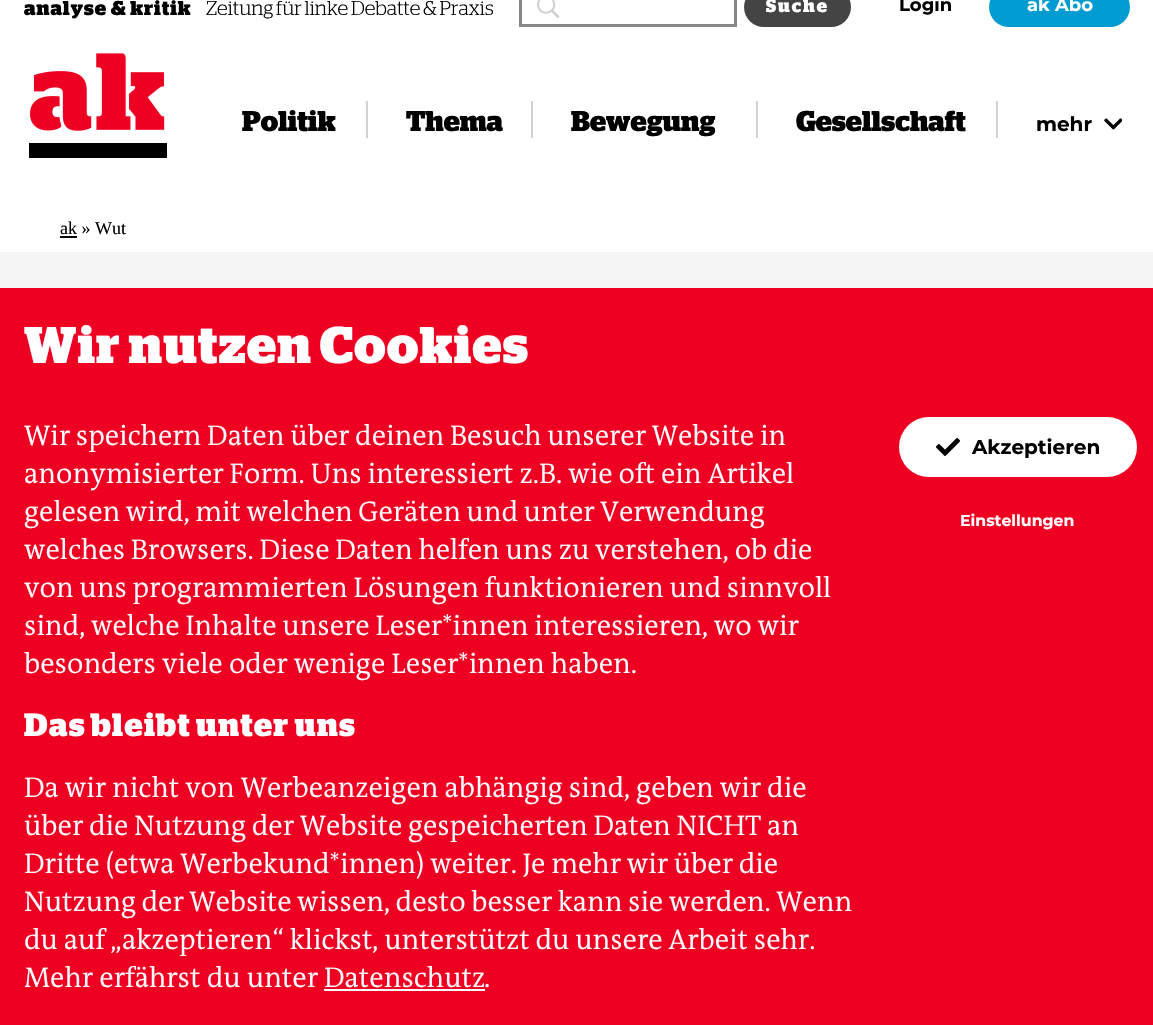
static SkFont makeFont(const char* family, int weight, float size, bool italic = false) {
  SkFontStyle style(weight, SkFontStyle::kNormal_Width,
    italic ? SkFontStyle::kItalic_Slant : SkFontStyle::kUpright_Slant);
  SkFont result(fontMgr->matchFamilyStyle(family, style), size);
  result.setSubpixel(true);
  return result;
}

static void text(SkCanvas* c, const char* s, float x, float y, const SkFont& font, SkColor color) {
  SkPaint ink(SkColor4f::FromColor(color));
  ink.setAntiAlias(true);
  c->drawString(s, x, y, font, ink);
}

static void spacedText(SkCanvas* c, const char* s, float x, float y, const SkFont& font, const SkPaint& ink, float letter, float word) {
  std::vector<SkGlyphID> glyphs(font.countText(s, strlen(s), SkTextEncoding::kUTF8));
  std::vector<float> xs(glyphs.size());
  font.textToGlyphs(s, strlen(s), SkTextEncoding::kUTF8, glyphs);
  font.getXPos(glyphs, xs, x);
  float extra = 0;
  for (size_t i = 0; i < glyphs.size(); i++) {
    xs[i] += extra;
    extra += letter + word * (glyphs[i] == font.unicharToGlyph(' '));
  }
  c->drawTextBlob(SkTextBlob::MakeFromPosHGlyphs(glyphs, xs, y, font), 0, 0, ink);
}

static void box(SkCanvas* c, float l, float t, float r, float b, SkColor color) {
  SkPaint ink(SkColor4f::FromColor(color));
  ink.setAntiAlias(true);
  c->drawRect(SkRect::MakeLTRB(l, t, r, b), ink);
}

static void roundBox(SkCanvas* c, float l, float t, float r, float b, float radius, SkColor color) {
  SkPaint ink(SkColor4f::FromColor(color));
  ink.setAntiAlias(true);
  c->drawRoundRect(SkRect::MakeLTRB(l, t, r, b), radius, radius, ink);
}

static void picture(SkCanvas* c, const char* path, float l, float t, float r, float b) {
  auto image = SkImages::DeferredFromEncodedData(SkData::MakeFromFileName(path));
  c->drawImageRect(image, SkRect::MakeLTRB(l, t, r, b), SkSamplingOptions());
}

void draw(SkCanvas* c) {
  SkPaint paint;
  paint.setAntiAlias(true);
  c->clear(0xffffffff);
  SkFont face1 = makeFont("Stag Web", 700, 20);
  paint.setColor(0xff000000);
  spacedText(c, "analyse & kritik", 24, 15, face1, paint, 1, 0);
  SkFont face2 = makeFont("Stag Web", 300, 20);
  spacedText(c, "Zeitung für linke Debatte & Praxis", 206, 15, face2, paint, 0, -0.5f);
  picture(c, "img_01.png", 537, 0, 560, 18);
  paint.setStyle(SkPaint::kStroke_Style);
  paint.setStrokeWidth(3);
  paint.setColor(0xff888888);
  c->drawRect(SkRect::MakeLTRB(520.5f, -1.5f, 735.5f, 25.5f), paint);
  roundBox(c, 744, -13, 851, 27, 20, 0xff444444);
  SkFont face3 = makeFont("Stag Web", 700, 18);
  paint.setStyle(SkPaint::kFill_Style);
  paint.setColor(0xffffffff);
  spacedText(c, "Suche", 766, 12, face3, paint, 2, 0);
  SkFont face4 = makeFont("Montserrat", 700, 18);
  text(c, "Login", 899, 11, face4, 0xff000000);
  roundBox(c, 989, -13, 1130, 27, 20, 0xff009bd1);
  text(c, "ak Abo", 1027, 11, face4, 0xffffffff);
  picture(c, "img_02.png", 30, 53, 165, 131);
  box(c, 29, 143, 167, 158, 0xff000000);
  box(c, 366, 101, 368, 138, 0xffd2d2d2);
  SkFont face5 = makeFont("Stag Web", 700, 28.5f);
  text(c, "Politik", 242, 131, face5, 0xff000000);
  box(c, 531, 101, 533, 138, 0xffd2d2d2);
  text(c, "Thema", 406, 131, face5, 0xff000000);
  box(c, 756, 101, 758, 138, 0xffd2d2d2);
  text(c, "Bewegung", 571, 131, face5, 0xff000000);
  box(c, 996, 101, 998, 138, 0xffd2d2d2);
  text(c, "Gesellschaft", 796, 131, face5, 0xff000000);
  SkFont face6 = makeFont("Montserrat", 700, 20);
  text(c, "mehr", 1036, 131, face6, 0xff000000);
  picture(c, "img_03.png", 1104, 118, 1122, 130);
  SkFont face7 = makeFont("Liberation Serif", 400, 18);
  text(c, "ak » Wut", 60, 234, face7, 0xff000000);
  box(c, 60, 236, 77, 238, 0xff000000);
  box(c, 0, 252, 1153, 288, 0xfff5f5f5);
  box(c, 0, 288, 1153, 1025, 0xffee0022);
  SkFont face8 = makeFont("Stag Web", 700, 51.4f);
  spacedText(c, "Wir nutzen Cookies", 24, 363, face8, paint, 1.5f, -1);
  SkFont face9 = makeFont("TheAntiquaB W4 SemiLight", 300, 28.5f);
  spacedText(c, "Wir speichern Daten über deinen Besuch unserer Website in", 24, 445, face9, paint, 0, -0.5f);
  spacedText(c, "anonymisierter Form. Uns interessiert z.B. wie oft ein Artikel", 24, 483, face9, paint, 0, -0.25f);
  spacedText(c, "gelesen wird, mit welchen Geräten und unter Verwendung", 24, 521, face9, paint, 0, -0.75f);
  spacedText(c, "welches Browsers. Diese Daten helfen uns zu verstehen, ob die", 24, 559, face9, paint, 0, -0.5f);
  spacedText(c, "von uns programmierten Lösungen funktionieren und sinnvoll", 24, 597, face9, paint, 0, -0.5f);
  spacedText(c, "sind, welche Inhalte unsere Leser*innen interessieren, wo wir", 24, 635, face9, paint, 0, -0.5f);
  text(c, "besonders viele oder wenige Leser*innen haben.", 24, 673, face9, 0xffffffff);
  SkFont face10 = makeFont("Stag Web", 700, 32);
  spacedText(c, "Das bleibt unter uns", 24, 736, face10, paint, 1.6f, -1);
  spacedText(c, "Da wir nicht von Werbeanzeigen abhängig sind, geben wir die", 24, 797, face9, paint, 0, -0.25f);
  spacedText(c, "über die Nutzung der Website gespeicherten Daten NICHT an", 24, 835, face9, paint, 0, -0.5f);
  spacedText(c, "Dritte (etwa Werbekund*innen) weiter. Je mehr wir über die", 24, 873, face9, paint, 0, -0.5f);
  spacedText(c, "Nutzung der Website wissen, desto besser kann sie werden. Wenn", 24, 911, face9, paint, 0, -0.75f);
  spacedText(c, "du auf „akzeptieren“ klickst, unterstützt du unsere Arbeit sehr.", 24, 949, face9, paint, 0, -0.5f);
  text(c, "Mehr erfährst du unter", 24, 987, face9, 0xffffffff);
  text(c, "Datenschutz", 324, 987, face9, 0xffffffff);
  box(c, 324, 989, 485, 991, 0xffffffff);
  text(c, ".", 484, 987, face9, 0xffffffff);
  roundBox(c, 899, 417, 1137, 477, 30, 0xffffffff);
  picture(c, "img_04.png", 936, 438, 960, 456);
  text(c, "Akzeptieren", 972, 454, face6, 0xff000000);
  SkFont face11 = makeFont("Montserrat", 700, 15.75f);
  text(c, "Einstellungen", 960, 526, face11, 0xffffffff);
}
